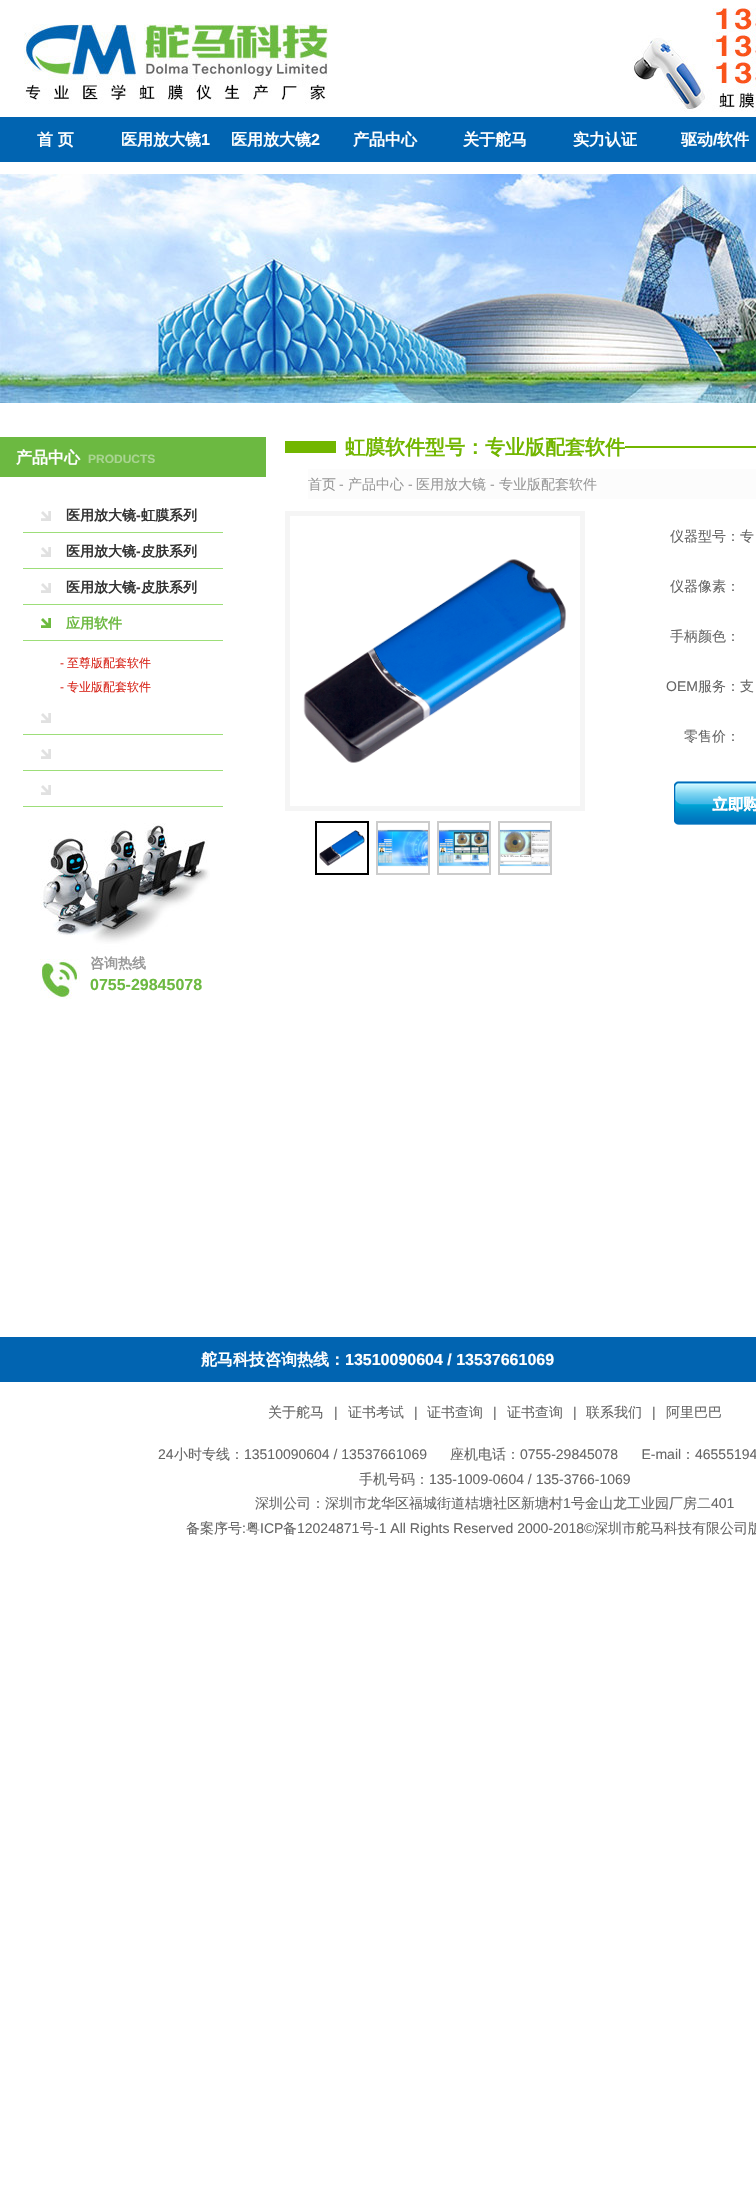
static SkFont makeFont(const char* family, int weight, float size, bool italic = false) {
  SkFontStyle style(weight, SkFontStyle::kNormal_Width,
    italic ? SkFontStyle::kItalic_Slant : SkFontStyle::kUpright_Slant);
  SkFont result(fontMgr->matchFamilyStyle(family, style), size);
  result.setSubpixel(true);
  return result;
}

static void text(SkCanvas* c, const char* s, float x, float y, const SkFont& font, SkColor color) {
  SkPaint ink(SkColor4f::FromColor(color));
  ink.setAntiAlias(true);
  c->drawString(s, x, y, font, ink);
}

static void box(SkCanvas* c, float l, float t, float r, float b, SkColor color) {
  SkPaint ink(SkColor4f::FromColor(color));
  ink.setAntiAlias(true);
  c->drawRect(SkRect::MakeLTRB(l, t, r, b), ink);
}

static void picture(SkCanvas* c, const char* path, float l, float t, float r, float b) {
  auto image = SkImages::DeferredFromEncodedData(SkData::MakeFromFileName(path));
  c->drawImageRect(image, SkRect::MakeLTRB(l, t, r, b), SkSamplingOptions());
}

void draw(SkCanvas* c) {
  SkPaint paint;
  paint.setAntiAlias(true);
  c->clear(0xffffffff);
  picture(c, "img_01.png", 24, 8, 756, 112);
  box(c, 0, 117, 756, 162, 0xff0164b1);
  SkFont face1 = makeFont("WenQuanYi Zen Hei", 700, 16);
  text(c, "首 页", 37, 145, face1, 0xffffffff);
  text(c, "医用放大镜", 121, 145, face1, 0xffffffff);
  SkFont face2 = makeFont("Liberation Sans", 700, 16);
  text(c, "1", 201, 145, face2, 0xffffffff);
  text(c, "医用放大镜", 231, 145, face1, 0xffffffff);
  text(c, "2", 311, 145, face2, 0xffffffff);
  text(c, "产品中心", 353, 145, face1, 0xffffffff);
  text(c, "关于舵马", 463, 145, face1, 0xffffffff);
  text(c, "实力认证", 573, 145, face1, 0xffffffff);
  text(c, "驱动", 681, 145, face1, 0xffffffff);
  text(c, "/", 713, 145, face2, 0xffffffff);
  text(c, "软件", 717, 145, face1, 0xffffffff);
  picture(c, "img_02.png", 0, 174, 756, 403);
  box(c, 0, 437, 266, 477, 0xff6cb941);
  text(c, "产品中心", 16, 463, face1, 0xffffffff);
  SkFont face3 = makeFont("Liberation Sans", 700, 12);
  text(c, "PRODUCTS", 88, 463, face3, 0xffa9d491);
  picture(c, "img_03.png", 23, 511, 223, 533);
  SkFont face4 = makeFont("WenQuanYi Zen Hei", 700, 14);
  text(c, "医用放大镜", 66, 520, face4, 0xff333333);
  SkFont face5 = makeFont("Liberation Sans", 700, 14);
  text(c, "-", 136, 520, face5, 0xff333333);
  text(c, "虹膜系列", 141, 520, face4, 0xff333333);
  picture(c, "img_03.png", 23, 547, 223, 569);
  text(c, "医用放大镜", 66, 556, face4, 0xff333333);
  text(c, "-", 136, 556, face5, 0xff333333);
  text(c, "皮肤系列", 141, 556, face4, 0xff333333);
  picture(c, "img_03.png", 23, 583, 223, 605);
  text(c, "医用放大镜", 66, 592, face4, 0xff333333);
  text(c, "-", 136, 592, face5, 0xff333333);
  text(c, "皮肤系列", 141, 592, face4, 0xff333333);
  picture(c, "img_04.png", 23, 618, 223, 641);
  text(c, "应用软件", 66, 628, face4, 0xff6cb941);
  SkFont face6 = makeFont("Liberation Sans", 400, 12);
  text(c, "-", 60, 667, face6, 0xffd8271c);
  SkFont face7 = makeFont("WenQuanYi Zen Hei", 500, 12);
  text(c, "至尊版配套软件", 67, 667, face7, 0xffd8271c);
  text(c, "-", 60, 691, face6, 0xffd8271c);
  text(c, "专业版配套软件", 67, 691, face7, 0xffd8271c);
  picture(c, "img_03.png", 23, 713, 223, 735);
  picture(c, "img_03.png", 23, 749, 223, 771);
  picture(c, "img_03.png", 23, 785, 223, 807);
  picture(c, "img_05.png", 40, 823, 210, 999);
  text(c, "咨询热线", 90, 968, face4, 0xff999999);
  text(c, "0755-29845078", 90, 990, face2, 0xff6cb941);
  picture(c, "img_06.png", 285, 441, 756, 453);
  box(c, 456, 446, 625, 448, 0xffffffff);
  SkFont face8 = makeFont("WenQuanYi Zen Hei", 700, 20);
  text(c, "虹膜软件型号：专业版配套软件", 345, 454, face8, 0xff72b600);
  box(c, 308, 469, 756, 499, 0xfffcfcfc);
  SkFont face9 = makeFont("WenQuanYi Zen Hei", 500, 14);
  text(c, "首页", 308, 489, face9, 0xff999999);
  SkFont face10 = makeFont("Liberation Sans", 400, 14);
  text(c, "-", 339, 489, face10, 0xff999999);
  text(c, "产品中心", 348, 489, face9, 0xff999999);
  text(c, "-", 408, 489, face10, 0xff999999);
  text(c, "医用放大镜", 416, 489, face9, 0xff999999);
  text(c, "-", 490, 489, face10, 0xff999999);
  text(c, "专业版配套软件", 499, 489, face9, 0xff999999);
  box(c, 285, 511, 585, 811, 0xfff5f5f5);
  picture(c, "img_07.png", 290, 516, 580, 806);
  paint.setStyle(SkPaint::kStroke_Style);
  paint.setStrokeWidth(2);
  paint.setColor(0xff000000);
  c->drawRect(SkRect::MakeLTRB(316, 822, 368, 874), paint);
  picture(c, "img_08.png", 317, 823, 367, 873);
  box(c, 376, 821, 430, 875, 0xffcccccc);
  picture(c, "img_09.png", 378, 823, 428, 873);
  box(c, 437, 821, 491, 875, 0xffcccccc);
  picture(c, "img_10.png", 439, 823, 489, 873);
  box(c, 498, 821, 552, 875, 0xffcccccc);
  picture(c, "img_11.png", 500, 823, 550, 873);
  text(c, "仪器型号：专", 670, 541, face9, 0xff666666);
  text(c, "仪器像素：", 670, 591, face9, 0xff666666);
  text(c, "手柄颜色：", 670, 641, face9, 0xff666666);
  text(c, "OEM", 666, 691, face10, 0xff666666);
  text(c, "服务：支", 698, 691, face9, 0xff666666);
  text(c, "零售价：", 684, 741, face9, 0xff666666);
  picture(c, "img_12.png", 674, 781, 756, 825);
  box(c, 0, 1337, 756, 1382, 0xff0164b1);
  text(c, "舵马科技咨询热线：", 201, 1365, face1, 0xffffffff);
  text(c, "13510090604 / 13537661069", 345, 1365, face2, 0xffffffff);
  text(c, "关于舵马", 268, 1417, face9, 0xff666666);
  text(c, "|", 334, 1417, face10, 0xff666666);
  text(c, "证书考试", 348, 1417, face9, 0xff666666);
  text(c, "|", 414, 1417, face10, 0xff666666);
  text(c, "证书查询", 427, 1417, face9, 0xff666666);
  text(c, "|", 493, 1417, face10, 0xff666666);
  text(c, "证书查询", 507, 1417, face9, 0xff666666);
  text(c, "|", 573, 1417, face10, 0xff666666);
  text(c, "联系我们", 586, 1417, face9, 0xff666666);
  text(c, "|", 652, 1417, face10, 0xff666666);
  text(c, "阿里巴巴", 666, 1417, face9, 0xff666666);
  text(c, "24", 158, 1459, face10, 0xff666666);
  text(c, "小时专线：", 174, 1459, face9, 0xff666666);
  text(c, "13510090604 / 13537661069", 244, 1459, face10, 0xff666666);
  text(c, "座机电话：", 450, 1459, face9, 0xff666666);
  text(c, "0755-29845078      E-mail", 520, 1459, face10, 0xff666666);
  text(c, "：", 681, 1459, face9, 0xff666666);
  text(c, "46555194", 695, 1459, face10, 0xff666666);
  text(c, "手机号码：", 359, 1484, face9, 0xff666666);
  text(c, "135-1009-0604 / 135-3766-1069", 429, 1484, face10, 0xff666666);
  text(c, "深圳公司：深圳市龙华区福城街道桔塘社区新塘村", 255, 1508, face9, 0xff666666);
  text(c, "1", 563, 1508, face10, 0xff666666);
  text(c, "号金山龙工业园厂房二", 571, 1508, face9, 0xff666666);
  text(c, "401", 711, 1508, face10, 0xff666666);
  text(c, "备案序号", 186, 1533, face9, 0xff666666);
  text(c, ":", 242, 1533, face10, 0xff666666);
  text(c, "粤", 246, 1533, face9, 0xff666666);
  text(c, "ICP", 260, 1533, face10, 0xff666666);
  text(c, "备", 283, 1533, face9, 0xff666666);
  text(c, "12024871", 297, 1533, face10, 0xff666666);
  text(c, "号", 360, 1533, face9, 0xff666666);
  text(c, "-1 All Rights Reserved 2000-2018©", 374, 1533, face10, 0xff666666);
  text(c, "深圳市舵马科技有限公司版", 594, 1533, face9, 0xff666666);
}
